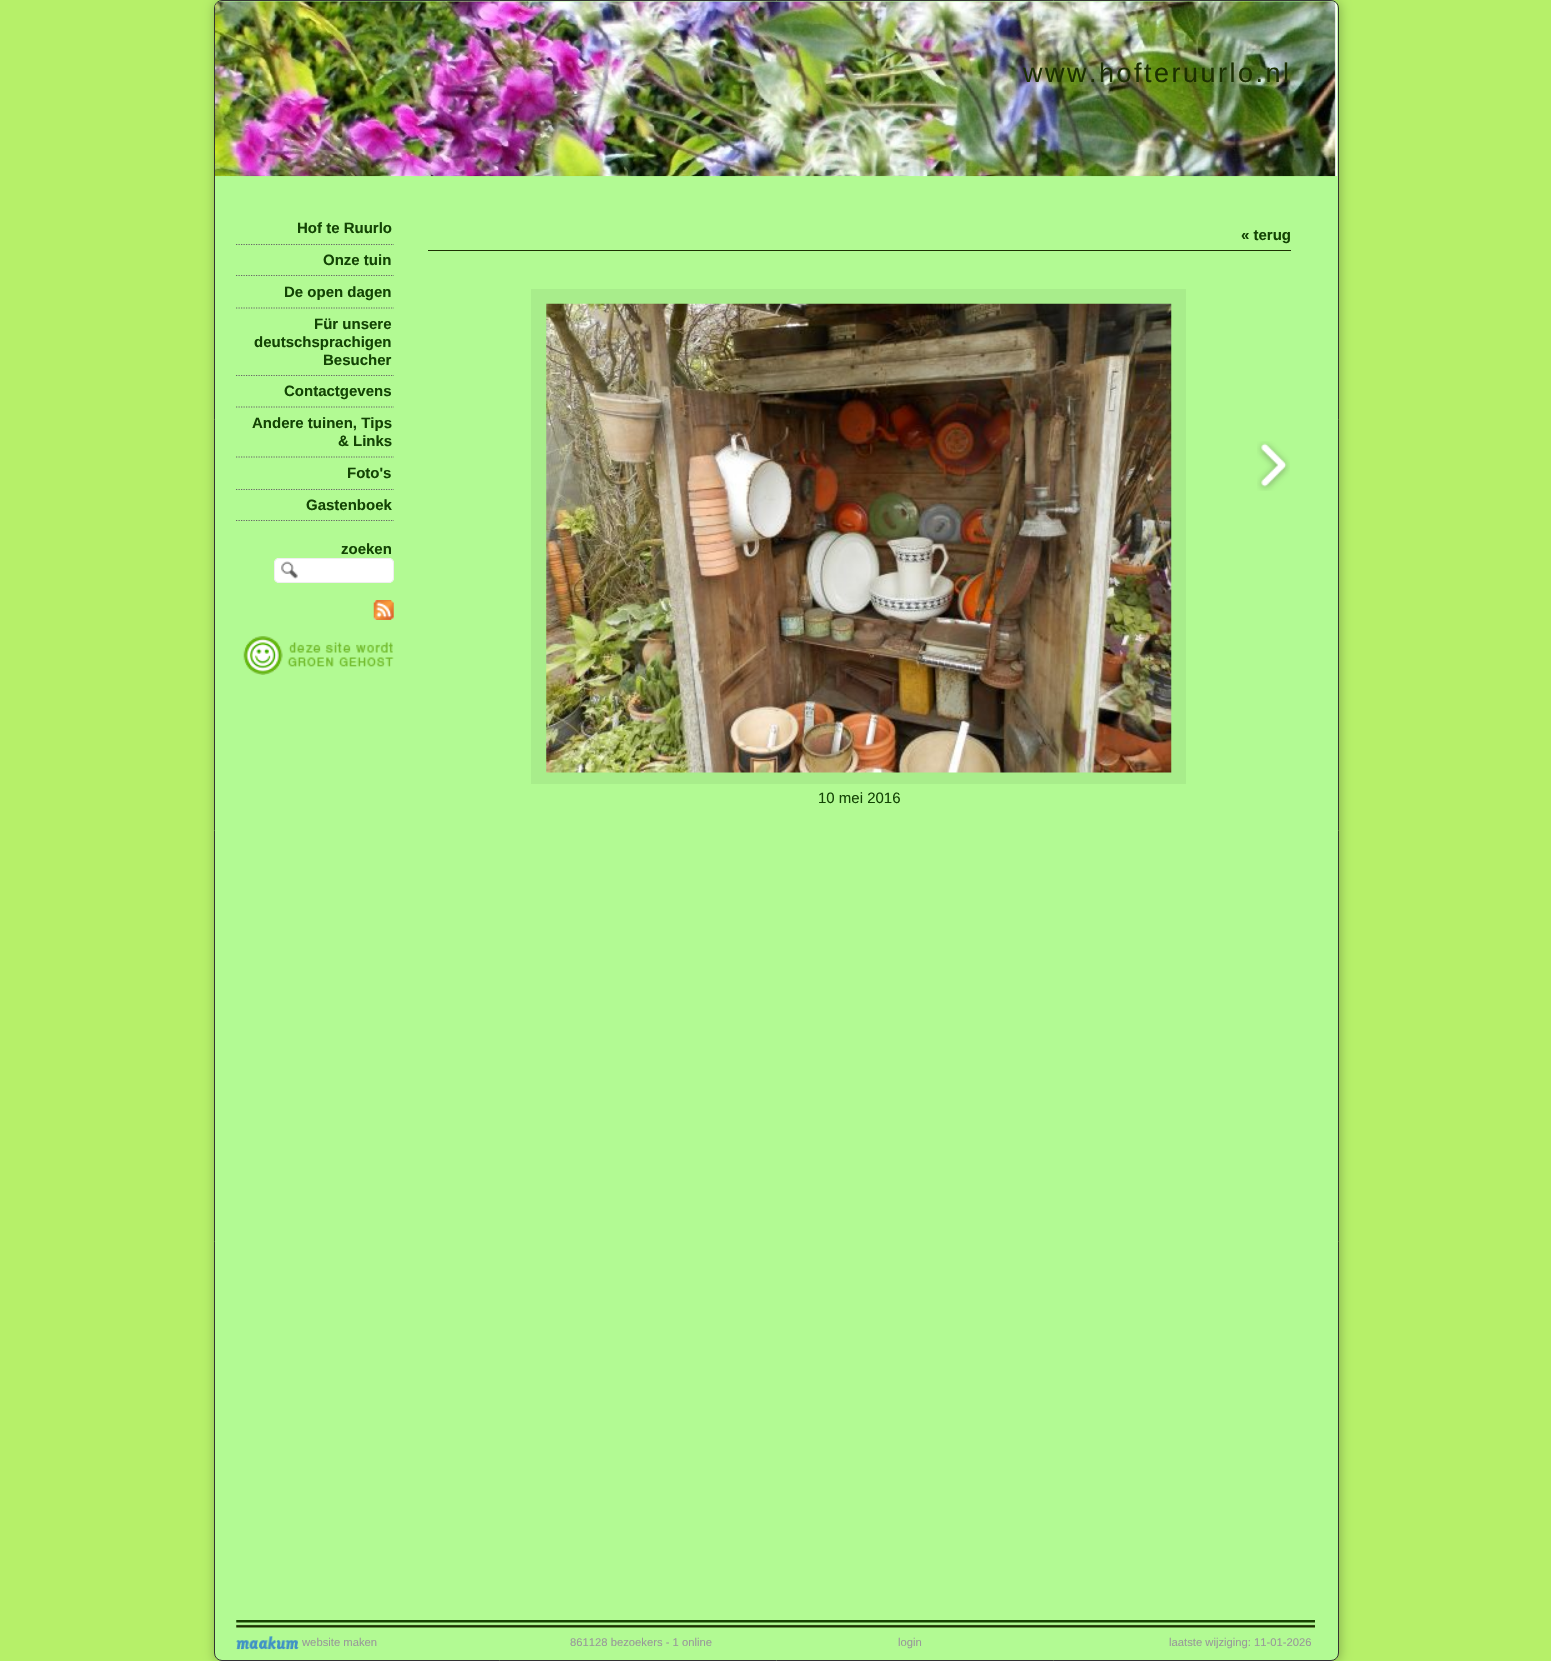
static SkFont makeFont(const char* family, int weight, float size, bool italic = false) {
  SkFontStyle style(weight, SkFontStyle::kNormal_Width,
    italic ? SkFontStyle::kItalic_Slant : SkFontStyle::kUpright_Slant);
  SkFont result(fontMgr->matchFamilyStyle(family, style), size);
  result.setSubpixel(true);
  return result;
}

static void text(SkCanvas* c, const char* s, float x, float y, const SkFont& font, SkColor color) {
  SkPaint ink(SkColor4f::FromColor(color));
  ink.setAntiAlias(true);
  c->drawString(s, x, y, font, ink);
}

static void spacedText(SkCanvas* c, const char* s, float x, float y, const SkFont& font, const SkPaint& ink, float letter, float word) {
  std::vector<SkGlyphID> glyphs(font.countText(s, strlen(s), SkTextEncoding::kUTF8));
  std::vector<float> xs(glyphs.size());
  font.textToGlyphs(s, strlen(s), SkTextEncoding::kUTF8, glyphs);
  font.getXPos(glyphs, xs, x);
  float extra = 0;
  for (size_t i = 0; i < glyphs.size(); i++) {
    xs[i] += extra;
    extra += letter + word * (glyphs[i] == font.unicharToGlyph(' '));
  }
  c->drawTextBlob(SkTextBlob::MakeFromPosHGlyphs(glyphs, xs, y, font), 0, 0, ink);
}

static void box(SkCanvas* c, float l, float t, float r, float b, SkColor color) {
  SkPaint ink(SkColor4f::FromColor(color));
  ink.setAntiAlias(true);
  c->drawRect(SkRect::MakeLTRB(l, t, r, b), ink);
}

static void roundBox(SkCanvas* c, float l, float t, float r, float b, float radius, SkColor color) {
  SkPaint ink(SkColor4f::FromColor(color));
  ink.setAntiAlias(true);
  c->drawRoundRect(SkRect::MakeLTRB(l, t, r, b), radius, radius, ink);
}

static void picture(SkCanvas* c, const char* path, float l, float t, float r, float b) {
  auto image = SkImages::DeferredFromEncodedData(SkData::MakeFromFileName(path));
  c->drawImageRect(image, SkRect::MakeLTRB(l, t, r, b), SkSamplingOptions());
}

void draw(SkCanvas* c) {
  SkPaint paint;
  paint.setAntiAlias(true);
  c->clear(0xffb6f069);
  paint.setColor(0xff85b04d);
  paint.setMaskFilter(SkMaskFilter::MakeBlur(kNormal_SkBlurStyle, 6));
  c->drawRoundRect(SkRect::MakeLTRB(215, 1, 1340, 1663), 8, 8, paint);
  paint.setMaskFilter(nullptr);
  paint.setColor(0xffb2fa93);
  c->drawRoundRect(SkRect::MakeLTRB(214.5f, 0.5f, 1338.5f, 1660.5f), 7.5f, 7.5f, paint);
  paint.setStyle(SkPaint::kStroke_Style);
  paint.setStrokeWidth(1);
  paint.setColor(0xff333333);
  c->drawRoundRect(SkRect::MakeLTRB(214.5f, 0.5f, 1338.5f, 1660.5f), 7.5f, 7.5f, paint);
  picture(c, "img_01.png", 215, 1, 1338, 177);
  SkFont face1 = makeFont("Liberation Sans", 400, 27);
  paint.setStyle(SkPaint::kFill_Style);
  paint.setColor(0xff1c3002);
  spacedText(c, "www.hofteruurlo.nl", 1023, 82, face1, paint, 2.5f, 0);
  paint.setStyle(SkPaint::kStroke_Style);
  paint.setStrokeWidth(1.2f);
  paint.setColor(0xff666666);
  paint.setPathEffect(SkDashPathEffect::Make({{1.25f, 1.25f}}, 0));
  c->drawPath(SkPathBuilder().moveTo(236, 244.5f).lineTo(394, 244.5f).detach(), paint);
  paint.setPathEffect(nullptr);
  SkFont face2 = makeFont("Liberation Sans", 700, 15);
  text(c, "Hof te Ruurlo", 297, 233, face2, 0xff134404);
  paint.setPathEffect(SkDashPathEffect::Make({{1.25f, 1.25f}}, 0));
  c->drawPath(SkPathBuilder().moveTo(236, 275.5f).lineTo(394, 275.5f).detach(), paint);
  paint.setPathEffect(nullptr);
  text(c, "Onze tuin", 323, 265, face2, 0xff134404);
  paint.setPathEffect(SkDashPathEffect::Make({{1.25f, 1.25f}}, 0));
  c->drawPath(SkPathBuilder().moveTo(236, 308).lineTo(394, 308).detach(), paint);
  paint.setPathEffect(nullptr);
  text(c, "De open dagen", 284, 297, face2, 0xff134404);
  paint.setPathEffect(SkDashPathEffect::Make({{1.25f, 1.25f}}, 0));
  c->drawPath(SkPathBuilder().moveTo(236, 375.5f).lineTo(394, 375.5f).detach(), paint);
  paint.setPathEffect(nullptr);
  text(c, "Für unsere", 314, 329, face2, 0xff134404);
  text(c, "deutschsprachigen", 254, 347, face2, 0xff134404);
  text(c, "Besucher", 323, 365, face2, 0xff134404);
  paint.setPathEffect(SkDashPathEffect::Make({{1.25f, 1.25f}}, 0));
  c->drawPath(SkPathBuilder().moveTo(236, 407).lineTo(394, 407).detach(), paint);
  paint.setPathEffect(nullptr);
  text(c, "Contactgevens", 284, 396, face2, 0xff134404);
  paint.setPathEffect(SkDashPathEffect::Make({{1.25f, 1.25f}}, 0));
  c->drawPath(SkPathBuilder().moveTo(236, 457).lineTo(394, 457).detach(), paint);
  paint.setPathEffect(nullptr);
  text(c, "Andere tuinen, Tips", 252, 428, face2, 0xff134404);
  text(c, "& Links", 338, 446, face2, 0xff134404);
  paint.setPathEffect(SkDashPathEffect::Make({{1.25f, 1.25f}}, 0));
  c->drawPath(SkPathBuilder().moveTo(236, 489.5f).lineTo(394, 489.5f).detach(), paint);
  paint.setPathEffect(nullptr);
  text(c, "Foto's", 347, 478, face2, 0xff134404);
  paint.setPathEffect(SkDashPathEffect::Make({{1.25f, 1.25f}}, 0));
  c->drawPath(SkPathBuilder().moveTo(236, 520.5f).lineTo(394, 520.5f).detach(), paint);
  paint.setPathEffect(nullptr);
  text(c, "Gastenboek", 306, 510, face2, 0xff134404);
  text(c, "zoeken", 341, 554, face2, 0xff134404);
  roundBox(c, 274, 558, 394, 583, 5, 0xffffffff);
  picture(c, "img_02.png", 281, 561, 298, 579);
  paint.setStrokeWidth(1);
  paint.setColor(0xffefefef);
  c->drawRoundRect(SkRect::MakeLTRB(274.5f, 558.5f, 393.5f, 582.5f), 4.5f, 4.5f, paint);
  picture(c, "img_03.png", 373, 600, 394, 620);
  picture(c, "img_04.png", 243, 636, 394, 675);
  box(c, 428, 250, 1291, 251, 0xff1c3002);
  text(c, "« terug", 1241, 240, face2, 0xff134404);
  box(c, 531, 289, 1186, 784, 0xffa8ed8b);
  picture(c, "img_05.png", 546, 303, 1172, 773);
  picture(c, "img_06.png", 1257, 441, 1290, 491);
  SkFont face3 = makeFont("Liberation Sans", 400, 15);
  text(c, "10 mei 2016", 818, 803, face3, 0xff134404);
  picture(c, "img_07.png", 236, 1620, 1315, 1628);
  picture(c, "img_08.png", 236, 1636, 299, 1650);
  SkFont face4 = makeFont("Liberation Sans", 400, 11.25f);
  text(c, "website maken", 302, 1646, face4, 0xff999999);
  text(c, "861128 bezoekers - 1 online", 570, 1646, face4, 0xff999999);
  text(c, "login", 898, 1646, face4, 0xff999999);
  text(c, "laatste wijziging: 11-01-2026", 1169, 1646, face4, 0xff999999);
}
